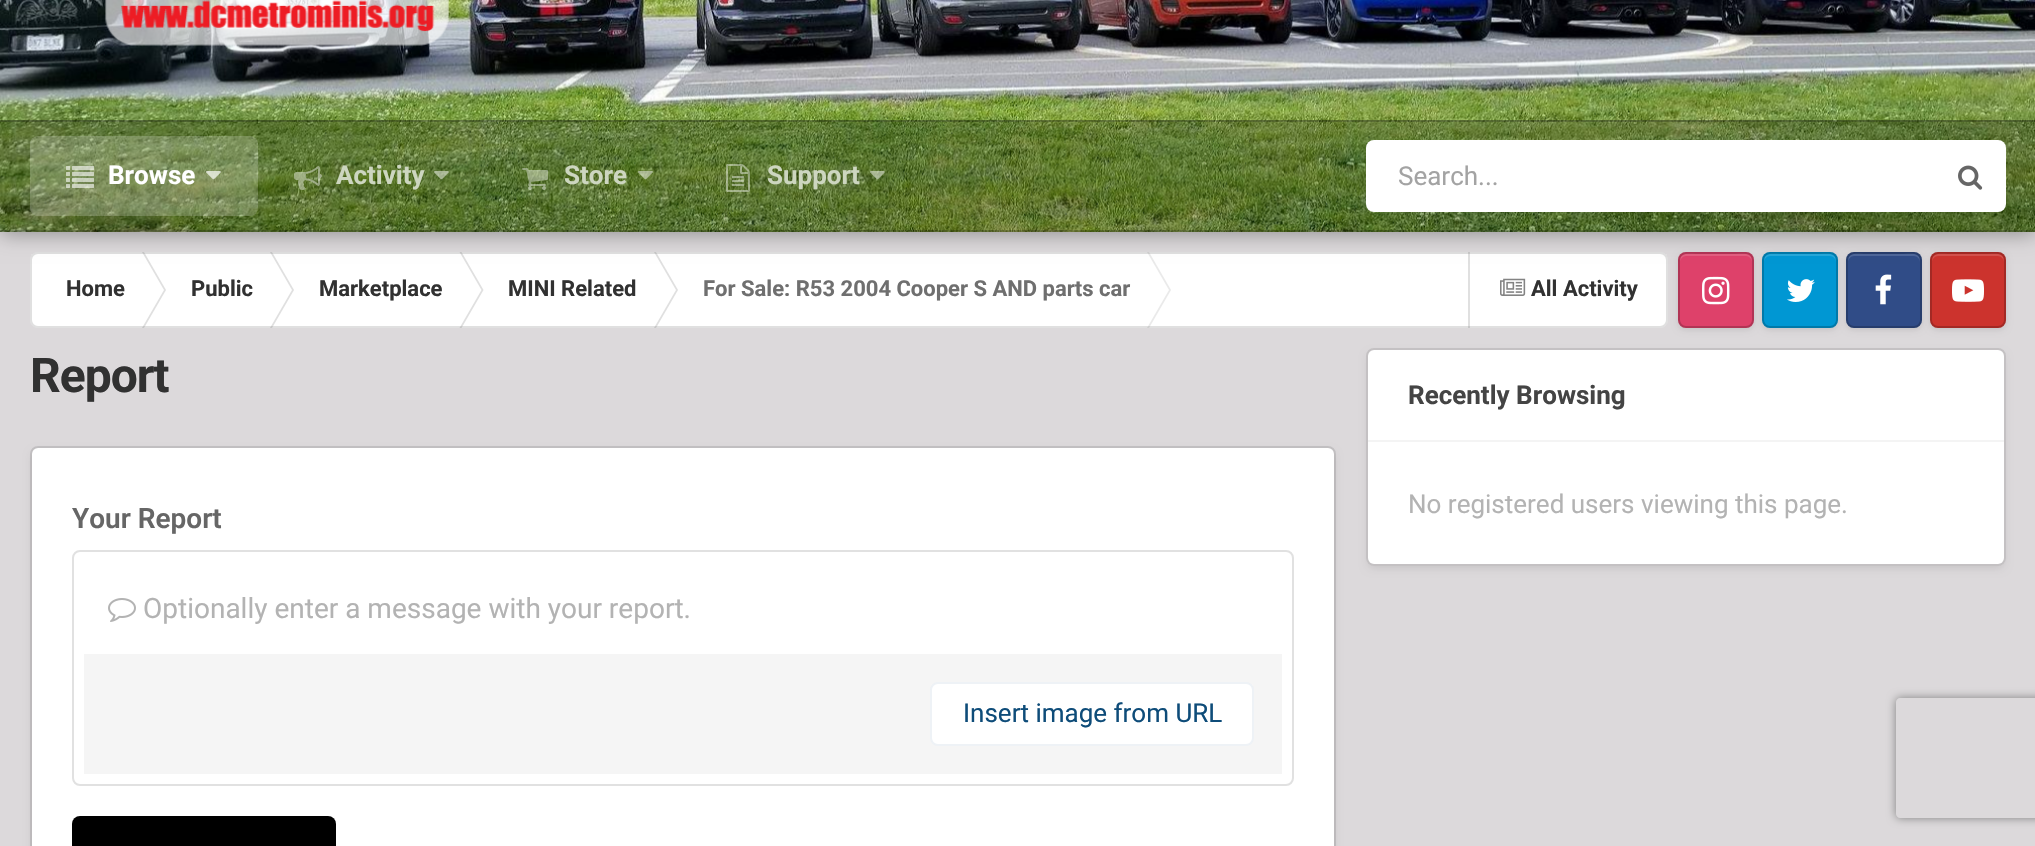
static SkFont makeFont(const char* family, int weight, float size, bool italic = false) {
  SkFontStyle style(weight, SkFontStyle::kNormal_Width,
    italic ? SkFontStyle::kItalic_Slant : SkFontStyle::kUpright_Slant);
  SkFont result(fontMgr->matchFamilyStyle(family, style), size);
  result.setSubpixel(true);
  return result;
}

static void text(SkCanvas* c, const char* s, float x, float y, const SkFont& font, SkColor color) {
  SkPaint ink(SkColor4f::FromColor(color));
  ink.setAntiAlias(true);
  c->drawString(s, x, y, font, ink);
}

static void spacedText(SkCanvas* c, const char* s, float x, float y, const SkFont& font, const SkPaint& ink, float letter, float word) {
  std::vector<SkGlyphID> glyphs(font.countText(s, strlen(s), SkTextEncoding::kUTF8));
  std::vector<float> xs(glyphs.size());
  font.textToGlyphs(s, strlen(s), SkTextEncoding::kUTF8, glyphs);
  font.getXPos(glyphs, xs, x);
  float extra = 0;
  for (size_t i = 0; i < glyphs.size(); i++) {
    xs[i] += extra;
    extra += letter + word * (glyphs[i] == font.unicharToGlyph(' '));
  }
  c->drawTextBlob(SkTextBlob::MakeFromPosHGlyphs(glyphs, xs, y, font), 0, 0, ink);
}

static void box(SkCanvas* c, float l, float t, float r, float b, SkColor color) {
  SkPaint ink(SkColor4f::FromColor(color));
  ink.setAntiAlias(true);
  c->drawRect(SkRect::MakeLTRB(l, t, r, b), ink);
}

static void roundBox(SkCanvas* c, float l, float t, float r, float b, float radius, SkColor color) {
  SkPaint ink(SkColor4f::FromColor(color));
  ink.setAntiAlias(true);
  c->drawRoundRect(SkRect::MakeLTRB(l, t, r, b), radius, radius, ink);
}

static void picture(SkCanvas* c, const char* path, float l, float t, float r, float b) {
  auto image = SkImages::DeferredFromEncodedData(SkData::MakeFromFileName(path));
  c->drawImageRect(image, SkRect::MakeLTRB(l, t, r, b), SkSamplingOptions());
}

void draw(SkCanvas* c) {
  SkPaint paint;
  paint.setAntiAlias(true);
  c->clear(0xffdcd9db);
  roundBox(c, 30, 252, 1668, 328, 8, 0xffffffff);
  paint.setColor(0xffe0e0e0);
  c->drawPath(SkPathBuilder().moveTo(142, 252).lineTo(144, 252).lineTo(166, 290).lineTo(164, 290).close().detach(), paint);
  c->drawPath(SkPathBuilder().moveTo(142, 328).lineTo(144, 328).lineTo(166, 290).lineTo(164, 290).close().detach(), paint);
  c->drawPath(SkPathBuilder().moveTo(270, 252).lineTo(272, 252).lineTo(294, 290).lineTo(292, 290).close().detach(), paint);
  c->drawPath(SkPathBuilder().moveTo(270, 328).lineTo(272, 328).lineTo(294, 290).lineTo(292, 290).close().detach(), paint);
  c->drawPath(SkPathBuilder().moveTo(459.5f, 252).lineTo(461.5f, 252).lineTo(483.5f, 290).lineTo(481.5f, 290).close().detach(), paint);
  c->drawPath(SkPathBuilder().moveTo(459.5f, 328).lineTo(461.5f, 328).lineTo(483.5f, 290).lineTo(481.5f, 290).close().detach(), paint);
  c->drawPath(SkPathBuilder().moveTo(654, 252).lineTo(656, 252).lineTo(678, 290).lineTo(676, 290).close().detach(), paint);
  c->drawPath(SkPathBuilder().moveTo(654, 328).lineTo(656, 328).lineTo(678, 290).lineTo(676, 290).close().detach(), paint);
  paint.setColor(0xffeaeaea);
  c->drawPath(SkPathBuilder().moveTo(1147, 252).lineTo(1149, 252).lineTo(1171, 290).lineTo(1169, 290).close().detach(), paint);
  c->drawPath(SkPathBuilder().moveTo(1147, 328).lineTo(1149, 328).lineTo(1171, 290).lineTo(1169, 290).close().detach(), paint);
  box(c, 1468, 252, 1470, 328, 0xffe0e0e0);
  picture(c, "img_12.png", 1500, 278, 1526, 296);
  paint.setStyle(SkPaint::kStroke_Style);
  paint.setStrokeWidth(2);
  paint.setColor(0x33666666);
  c->drawRoundRect(SkRect::MakeLTRB(31, 253, 1667, 327), 7, 7, paint);
  paint.setStyle(SkPaint::kFill_Style);
  paint.setColor(0x1a000000);
  paint.setMaskFilter(SkMaskFilter::MakeBlur(kNormal_SkBlurStyle, 3));
  c->drawRoundRect(SkRect::MakeLTRB(1678, 254, 1754, 330), 8, 8, paint);
  paint.setMaskFilter(nullptr);
  roundBox(c, 1678, 252, 1754, 328, 8, 0xffde416a);
  paint.setColor(0xffe35e80);
  c->drawPath(SkPathBuilder().moveTo(1686, 256).cubicTo(1683, 256, 1680, 259, 1680, 262).cubicTo(1680, 252, 1688, 254, 1696, 254).lineTo(1736, 254).cubicTo(1744, 254, 1752, 252, 1752, 262).cubicTo(1752, 259, 1749, 256, 1746, 256).close().detach(), paint);
  picture(c, "img_13.png", 1702, 276, 1730, 305);
  paint.setStyle(SkPaint::kStroke_Style);
  paint.setColor(0x33000000);
  c->drawRoundRect(SkRect::MakeLTRB(1679, 253, 1753, 327), 7, 7, paint);
  paint.setStyle(SkPaint::kFill_Style);
  paint.setColor(0x1a000000);
  paint.setMaskFilter(SkMaskFilter::MakeBlur(kNormal_SkBlurStyle, 3));
  c->drawRoundRect(SkRect::MakeLTRB(1762, 254, 1838, 330), 8, 8, paint);
  paint.setMaskFilter(nullptr);
  roundBox(c, 1762, 252, 1838, 328, 8, 0xff0097d3);
  paint.setColor(0xff26a7da);
  c->drawPath(SkPathBuilder().moveTo(1770, 256).cubicTo(1767, 256, 1764, 259, 1764, 262).cubicTo(1764, 252, 1772, 254, 1780, 254).lineTo(1820, 254).cubicTo(1828, 254, 1836, 252, 1836, 262).cubicTo(1836, 259, 1833, 256, 1830, 256).close().detach(), paint);
  picture(c, "img_14.png", 1787, 279, 1815, 302);
  paint.setStyle(SkPaint::kStroke_Style);
  paint.setColor(0x33000000);
  c->drawRoundRect(SkRect::MakeLTRB(1763, 253, 1837, 327), 7, 7, paint);
  paint.setStyle(SkPaint::kFill_Style);
  paint.setColor(0x1a000000);
  paint.setMaskFilter(SkMaskFilter::MakeBlur(kNormal_SkBlurStyle, 3));
  c->drawRoundRect(SkRect::MakeLTRB(1846, 254, 1922, 330), 8, 8, paint);
  paint.setMaskFilter(nullptr);
  roundBox(c, 1846, 252, 1922, 328, 8, 0xff304c87);
  paint.setColor(0xff4f6799);
  c->drawPath(SkPathBuilder().moveTo(1854, 256).cubicTo(1851, 256, 1848, 259, 1848, 262).cubicTo(1848, 252, 1856, 254, 1864, 254).lineTo(1904, 254).cubicTo(1912, 254, 1920, 252, 1920, 262).cubicTo(1920, 259, 1917, 256, 1914, 256).close().detach(), paint);
  picture(c, "img_15.png", 1875, 274, 1892, 305);
  paint.setStyle(SkPaint::kStroke_Style);
  paint.setColor(0x33000000);
  c->drawRoundRect(SkRect::MakeLTRB(1847, 253, 1921, 327), 7, 7, paint);
  paint.setStyle(SkPaint::kFill_Style);
  paint.setColor(0x1a000000);
  paint.setMaskFilter(SkMaskFilter::MakeBlur(kNormal_SkBlurStyle, 3));
  c->drawRoundRect(SkRect::MakeLTRB(1930, 254, 2006, 330), 8, 8, paint);
  paint.setMaskFilter(nullptr);
  roundBox(c, 1930, 252, 2006, 328, 8, 0xffcc332d);
  paint.setColor(0xffd4524d);
  c->drawPath(SkPathBuilder().moveTo(1938, 256).cubicTo(1935, 256, 1932, 259, 1932, 262).cubicTo(1932, 252, 1940, 254, 1948, 254).lineTo(1988, 254).cubicTo(1996, 254, 2004, 252, 2004, 262).cubicTo(2004, 259, 2001, 256, 1998, 256).close().detach(), paint);
  picture(c, "img_16.png", 1952, 279, 1984, 302);
  paint.setStyle(SkPaint::kStroke_Style);
  paint.setColor(0x33000000);
  c->drawRoundRect(SkRect::MakeLTRB(1931, 253, 2005, 327), 7, 7, paint);
  paint.setStyle(SkPaint::kFill_Style);
  paint.setColor(0x59000000);
  paint.setMaskFilter(SkMaskFilter::MakeBlur(kNormal_SkBlurStyle, 10));
  c->drawRect(SkRect::MakeLTRB(0, -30, 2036, 234), paint);
  paint.setMaskFilter(nullptr);
  picture(c, "img_01.png", 0, 0, 2035, 232);
  picture(c, "img_02.png", 105, 0, 449, 46);
  box(c, 0, 120, 2035, 232, 0x33000000);
  box(c, 0, 120, 2035, 122, 0x33000000);
  box(c, 0, 230, 2035, 232, 0x33000000);
  roundBox(c, 30, 136, 258, 216, 8, 0x33ffffff);
  picture(c, "img_03.png", 66, 166, 94, 188);
  SkFont face1 = makeFont("Roboto", 700, 26);
  text(c, "Browse", 108, 184, face1, 0xffffffff);
  picture(c, "img_04.png", 206, 171, 221, 180);
  picture(c, "img_05.png", 294, 166, 322, 190);
  text(c, "Activity", 336, 184, face1, 0xffcdd6c0);
  picture(c, "img_06.png", 434, 171, 449, 180);
  picture(c, "img_07.png", 522, 168, 548, 190);
  text(c, "Store", 564, 184, face1, 0xffcdd6c0);
  picture(c, "img_08.png", 638, 171, 653, 180);
  picture(c, "img_09.png", 726, 164, 750, 192);
  text(c, "Support", 767, 184, face1, 0xffcdd6c0);
  picture(c, "img_10.png", 870, 171, 885, 180);
  roundBox(c, 1366, 140, 2006, 212, 8, 0xffffffff);
  SkFont face2 = makeFont("Roboto", 400, 26);
  text(c, "Search...", 1398, 185, face2, 0xffa3a3a3);
  picture(c, "img_11.png", 1958, 165, 1983, 190);
  SkFont face3 = makeFont("Roboto", 700, 22);
  text(c, "Home", 66, 296, face3, 0xff313131);
  text(c, "Public", 191, 296, face3, 0xff313131);
  text(c, "Marketplace", 319, 296, face3, 0xff313131);
  text(c, "MINI Related", 508, 296, face3, 0xff313131);
  text(c, "For Sale: R53 2004 Cooper S AND parts car", 703, 296, face3, 0xff6f6f6f);
  text(c, "All Activity", 1531, 296, face3, 0xff313131);
  SkFont face4 = makeFont("Roboto", 700, 48);
  paint.setColor(0xff313131);
  spacedText(c, "Report", 30, 392, face4, paint, -1, 0);
  paint.setColor(0x1a000000);
  paint.setMaskFilter(SkMaskFilter::MakeBlur(kNormal_SkBlurStyle, 4));
  c->drawRoundRect(SkRect::MakeLTRB(32, 452, 1334, 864), 6, 6, paint);
  paint.setMaskFilter(nullptr);
  roundBox(c, 32, 448, 1334, 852, 6, 0xffffffff);
  paint.setStyle(SkPaint::kStroke_Style);
  paint.setColor(0x33666666);
  c->drawRoundRect(SkRect::MakeLTRB(31, 447, 1335, 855), 7, 7, paint);
  SkFont face5 = makeFont("Roboto", 600, 28);
  text(c, "Your Report", 72, 528, face5, 0xff666666);
  paint.setColor(0xffe1e1e1);
  c->drawRoundRect(SkRect::MakeLTRB(73, 551, 1293, 785), 7, 7, paint);
  picture(c, "img_17.png", 108, 598, 136, 622);
  SkFont face6 = makeFont("Roboto", 400, 28);
  text(c, "Optionally enter a message with your report.", 143, 618, face6, 0xffb3b3b3);
  box(c, 84, 654, 1282, 774, 0xfff5f5f5);
  roundBox(c, 930, 682, 1254, 746, 8, 0xffffffff);
  paint.setColor(0x120e4c79);
  c->drawRoundRect(SkRect::MakeLTRB(931, 683, 1253, 745), 7, 7, paint);
  text(c, "Insert image from URL", 963, 722, face2, 0xff0e4c79);
  roundBox(c, 72, 816, 336, 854, 8, 0xff000000);
  c->save();
  c->clipPath(SkPathBuilder(SkPathFillType::kEvenOdd).moveTo(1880, 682).lineTo(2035, 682).lineTo(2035, 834).lineTo(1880, 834).close().moveTo(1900, 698).lineTo(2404, 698).cubicTo(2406, 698, 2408, 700, 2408, 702).lineTo(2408, 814).cubicTo(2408, 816, 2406, 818, 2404, 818).lineTo(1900, 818).cubicTo(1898, 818, 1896, 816, 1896, 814).lineTo(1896, 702).cubicTo(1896, 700, 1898, 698, 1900, 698).close().detach(), true);
  paint.setStyle(SkPaint::kFill_Style);
  paint.setColor(0xff808080);
  paint.setMaskFilter(SkMaskFilter::MakeBlur(kNormal_SkBlurStyle, 5));
  c->drawRoundRect(SkRect::MakeLTRB(1896, 698, 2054, 818), 4, 4, paint);
  paint.setMaskFilter(nullptr);
  c->restore();
  c->save();
  c->clipPath(SkPathBuilder(SkPathFillType::kEvenOdd).moveTo(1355, 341).lineTo(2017, 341).lineTo(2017, 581).lineTo(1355, 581).close().moveTo(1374, 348).lineTo(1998, 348).cubicTo(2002.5f, 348, 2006, 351.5f, 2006, 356).lineTo(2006, 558).cubicTo(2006, 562.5f, 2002.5f, 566, 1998, 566).lineTo(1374, 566).cubicTo(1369.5f, 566, 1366, 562.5f, 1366, 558).lineTo(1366, 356).cubicTo(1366, 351.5f, 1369.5f, 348, 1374, 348).close().detach(), true);
  paint.setColor(0x1a000000);
  paint.setMaskFilter(SkMaskFilter::MakeBlur(kNormal_SkBlurStyle, 4));
  c->drawRoundRect(SkRect::MakeLTRB(1368, 354, 2004, 568), 6, 6, paint);
  paint.setMaskFilter(nullptr);
  c->restore();
  roundBox(c, 1368, 350, 2004, 564, 6, 0xffffffff);
  paint.setStyle(SkPaint::kStroke_Style);
  paint.setColor(0x33666666);
  c->drawRoundRect(SkRect::MakeLTRB(1367, 349, 2005, 565), 7, 7, paint);
  box(c, 1368, 440, 2004, 442, 0xfff4f4f4);
  text(c, "Recently Browsing", 1408, 404, face1, 0xff444444);
  text(c, "No registered users viewing this page.", 1408, 513, face2, 0xffb3b3b3);
}
